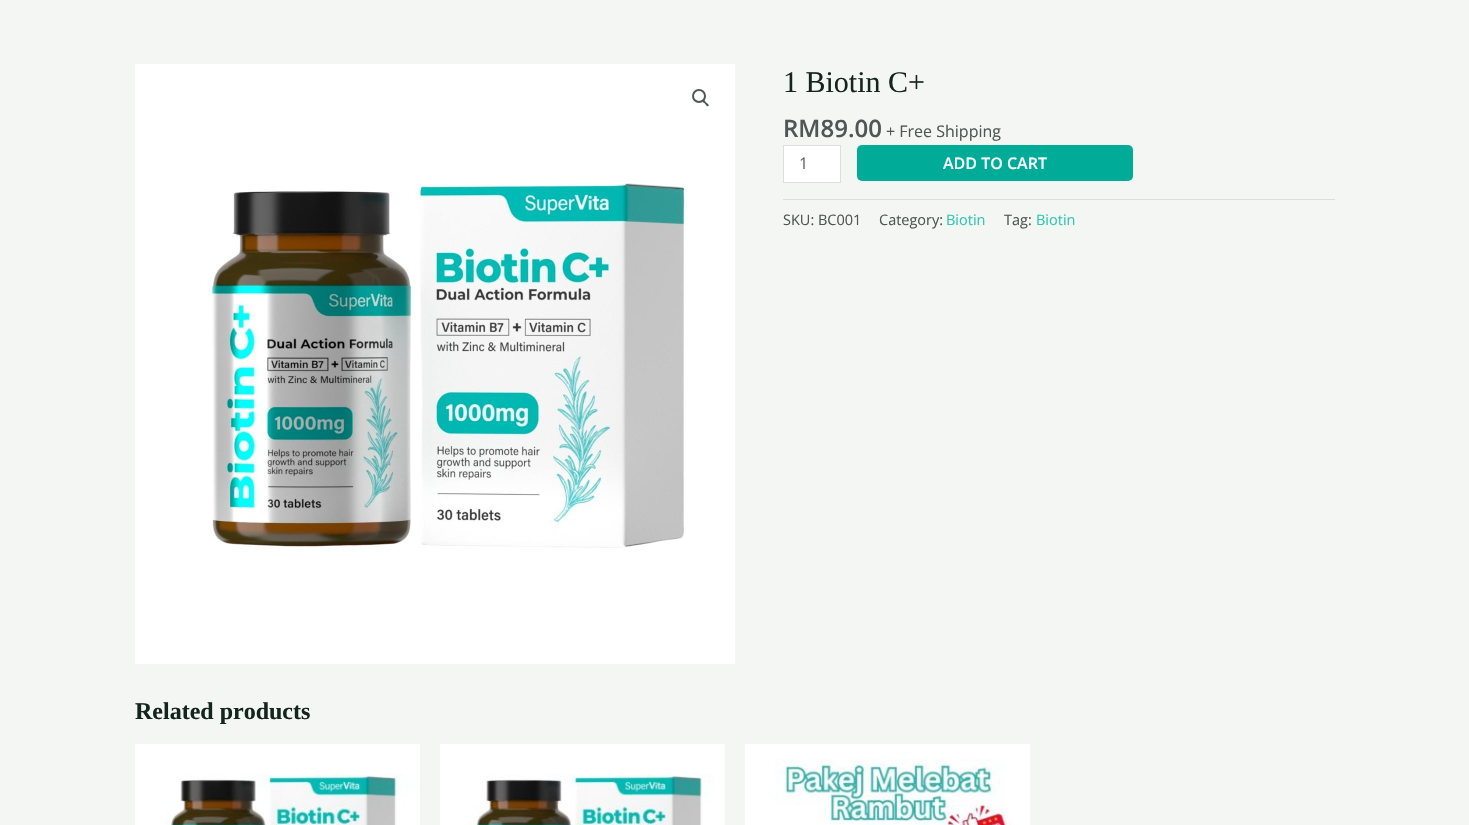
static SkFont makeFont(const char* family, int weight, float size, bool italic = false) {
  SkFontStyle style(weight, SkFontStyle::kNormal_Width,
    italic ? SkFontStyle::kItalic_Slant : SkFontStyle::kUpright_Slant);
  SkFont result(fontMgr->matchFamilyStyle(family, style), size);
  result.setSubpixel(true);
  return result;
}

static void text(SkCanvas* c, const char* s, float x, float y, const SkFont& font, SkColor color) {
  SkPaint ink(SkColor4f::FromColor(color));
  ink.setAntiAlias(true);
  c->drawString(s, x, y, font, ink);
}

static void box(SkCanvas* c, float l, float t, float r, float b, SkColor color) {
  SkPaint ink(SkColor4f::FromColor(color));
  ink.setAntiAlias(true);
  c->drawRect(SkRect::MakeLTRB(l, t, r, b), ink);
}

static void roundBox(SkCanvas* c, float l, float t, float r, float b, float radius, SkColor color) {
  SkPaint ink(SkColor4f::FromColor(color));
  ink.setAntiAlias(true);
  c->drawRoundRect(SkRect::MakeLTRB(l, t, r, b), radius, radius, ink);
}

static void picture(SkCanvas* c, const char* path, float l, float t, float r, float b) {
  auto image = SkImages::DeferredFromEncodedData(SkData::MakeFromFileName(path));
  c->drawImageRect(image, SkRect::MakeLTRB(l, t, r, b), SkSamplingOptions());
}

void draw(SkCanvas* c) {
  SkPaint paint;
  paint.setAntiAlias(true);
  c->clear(0xfff3f6f3);
  picture(c, "img_01.png", 135, 64, 735, 664);
  paint.setStyle(SkPaint::kStroke_Style);
  paint.setStrokeWidth(2);
  paint.setColor(0xff4f5655);
  c->drawCircle(699, 96, 6, paint);
  paint.setStyle(SkPaint::kFill_Style);
  c->drawPath(SkPathBuilder().moveTo(702.5f, 100).cubicTo(704, 99, 705.5f, 101.5f, 706, 102.5f).cubicTo(707, 103, 709.5f, 104.5f, 708.5f, 106).cubicTo(707, 107, 705.5f, 104.5f, 705, 103.5f).cubicTo(704, 103, 701.5f, 101.5f, 702.5f, 100).close().detach(), paint);
  SkFont face1 = makeFont("Liberation Serif", 400, 30);
  text(c, "1 Biotin C+", 783, 92, face1, 0xff14261c);
  SkFont face2 = makeFont("Open Sans", 600, 24);
  text(c, "RM89.00", 783, 137, face2, 0xff4f5655);
  SkFont face3 = makeFont("Open Sans", 400, 16);
  text(c, "+ Free Shipping", 886, 137, face3, 0xff4f5655);
  paint.setColor(0xffffffff);
  c->drawRect(SkRect::MakeLTRB(783.5f, 145.5f, 840.5f, 182.5f), paint);
  paint.setStyle(SkPaint::kStroke_Style);
  paint.setStrokeWidth(1);
  paint.setColor(0xffdddddd);
  c->drawRect(SkRect::MakeLTRB(783.5f, 145.5f, 840.5f, 182.5f), paint);
  text(c, "1", 799, 169, face3, 0xff666666);
  roundBox(c, 857, 145, 1133, 181, 5, 0xff00ac97);
  SkFont face4 = makeFont("Open Sans", 600, 16);
  text(c, "ADD TO CART", 943, 169, face4, 0xffffffff);
  box(c, 783, 199, 1335, 200, 0xffdddddd);
  SkFont face5 = makeFont("Open Sans", 400, 14.5f);
  text(c, "SKU: BC001", 783, 225, face5, 0xff4f5655);
  text(c, "Category:", 879, 225, face5, 0xff4f5655);
  text(c, "Biotin", 946, 225, face5, 0xff30c7b5);
  text(c, "Tag:", 1004, 225, face5, 0xff4f5655);
  text(c, "Biotin", 1036, 225, face5, 0xff30c7b5);
  SkFont face6 = makeFont("Liberation Serif", 700, 24);
  text(c, "Related products", 135, 719, face6, 0xff14261c);
  picture(c, "img_02.png", 135, 744, 420, 825);
  picture(c, "img_03.png", 440, 744, 725, 825);
  picture(c, "img_04.png", 745, 744, 1030, 825);
}
